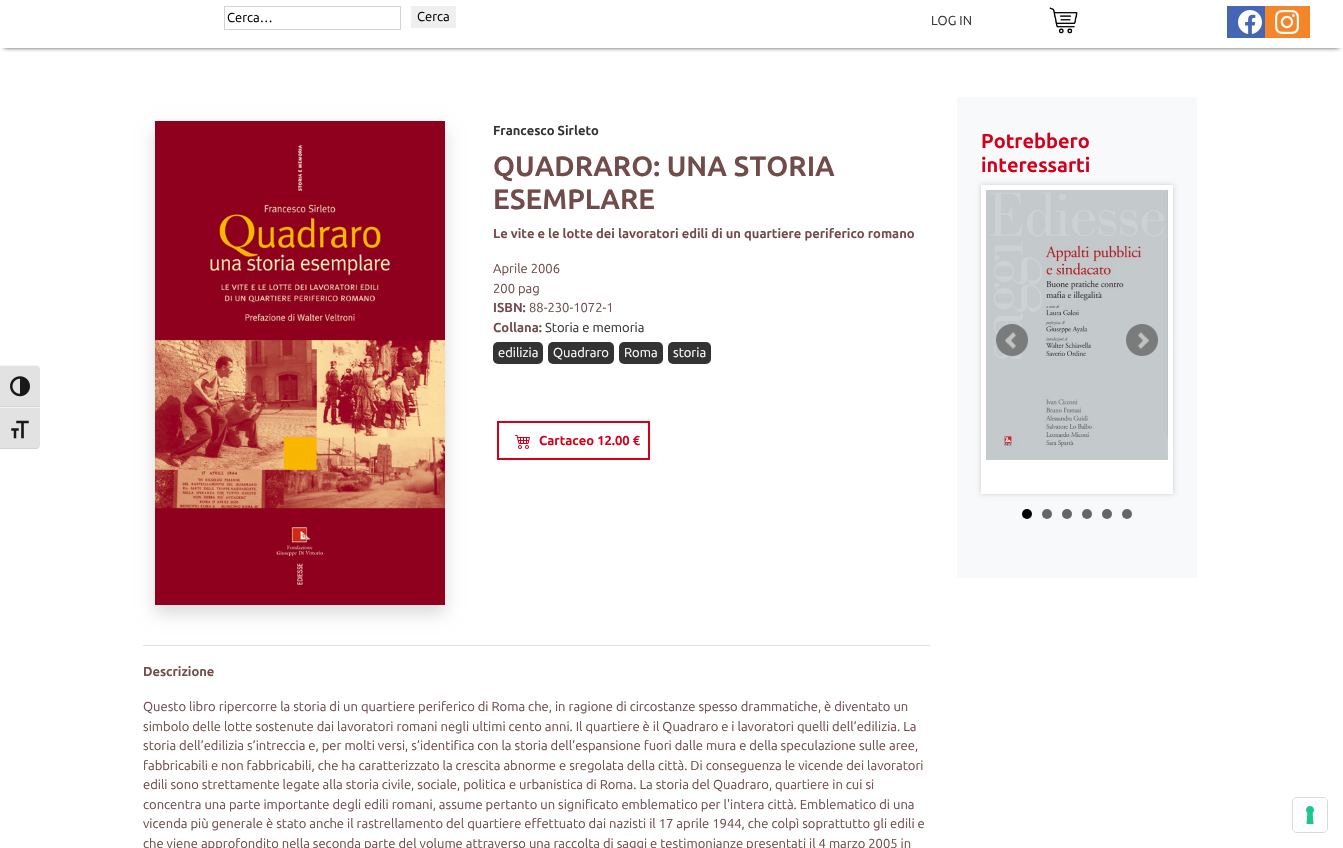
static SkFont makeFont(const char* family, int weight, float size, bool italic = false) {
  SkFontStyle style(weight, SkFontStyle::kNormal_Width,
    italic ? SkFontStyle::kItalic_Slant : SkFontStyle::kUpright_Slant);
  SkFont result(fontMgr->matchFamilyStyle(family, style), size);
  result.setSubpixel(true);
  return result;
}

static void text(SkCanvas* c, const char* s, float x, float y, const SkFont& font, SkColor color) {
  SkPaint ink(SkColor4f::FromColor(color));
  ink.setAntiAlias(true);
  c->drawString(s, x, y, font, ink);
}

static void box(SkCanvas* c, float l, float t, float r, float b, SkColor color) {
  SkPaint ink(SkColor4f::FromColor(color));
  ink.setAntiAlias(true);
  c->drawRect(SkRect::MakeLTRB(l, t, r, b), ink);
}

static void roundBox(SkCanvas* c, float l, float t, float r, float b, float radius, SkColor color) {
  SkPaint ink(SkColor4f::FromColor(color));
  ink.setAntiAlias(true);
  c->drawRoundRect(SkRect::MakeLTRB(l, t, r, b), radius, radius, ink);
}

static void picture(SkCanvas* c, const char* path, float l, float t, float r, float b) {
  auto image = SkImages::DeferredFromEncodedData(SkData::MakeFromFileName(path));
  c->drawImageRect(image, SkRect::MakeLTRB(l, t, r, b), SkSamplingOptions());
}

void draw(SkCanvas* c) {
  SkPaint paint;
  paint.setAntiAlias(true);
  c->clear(0xffffffff);
  paint.setColor(0xffe2e2e2);
  c->drawPath(SkPathBuilder().moveTo(0, 365).lineTo(36, 365).cubicTo(38, 365, 40, 367, 40, 369).lineTo(40, 407).lineTo(0, 407).close().detach(), paint);
  paint.setColor(0xfff5f5f5);
  c->drawPath(SkPathBuilder().moveTo(0, 365).lineTo(0, 366).lineTo(36, 366).cubicTo(38, 366, 40, 367, 40, 369).cubicTo(40, 367, 38, 365, 36, 365).close().detach(), paint);
  box(c, 0, 406, 40, 407, 0xffd2d2d2);
  picture(c, "img_01.png", 10, 376, 30, 397);
  paint.setColor(0xffe2e2e2);
  c->drawPath(SkPathBuilder().moveTo(0, 407).lineTo(40, 407).lineTo(40, 445).cubicTo(40, 447, 38, 449, 36, 449).lineTo(0, 449).close().detach(), paint);
  box(c, 0, 407, 40, 408, 0xfff5f5f5);
  paint.setColor(0xffd2d2d2);
  c->drawPath(SkPathBuilder().moveTo(0, 448).lineTo(0, 449).lineTo(36, 449).cubicTo(38, 449, 40, 447, 40, 445).cubicTo(40, 447, 38, 448, 36, 448).close().detach(), paint);
  picture(c, "img_02.png", 11, 420, 29, 439);
  c->save();
  c->clipRect(SkRect::MakeLTRB(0, 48, 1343, 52));
  paint.setColor(0xff000000);
  paint.setMaskFilter(SkMaskFilter::MakeBlur(kNormal_SkBlurStyle, 2.5f));
  c->drawRect(SkRect::MakeLTRB(4, 3, 1339, 47), paint);
  paint.setMaskFilter(nullptr);
  c->restore();
  paint.setStyle(SkPaint::kStroke_Style);
  paint.setStrokeWidth(1);
  paint.setColor(0xffd3d3d3);
  c->drawRect(SkRect::MakeLTRB(224.5f, 6.5f, 400.5f, 29.5f), paint);
  SkFont face1 = makeFont("Ubuntu", 400, 13);
  text(c, "Cerca…", 227, 22, face1, 0xff000000);
  box(c, 411, 6, 456, 28, 0xffefefef);
  text(c, "Cerca", 417, 21, face1, 0xff000000);
  text(c, "LOG IN", 931, 25, face1, 0xff333333);
  picture(c, "img_03.png", 1049, 7, 1078, 34);
  box(c, 1227, 6, 1265, 38, 0xff4566b5);
  picture(c, "img_04.png", 1238, 10, 1262, 34);
  box(c, 1265, 6, 1310, 38, 0xfff58529);
  picture(c, "img_05.png", 1275, 10, 1299, 34);
  paint.setStyle(SkPaint::kFill_Style);
  paint.setColor(0x26000000);
  paint.setMaskFilter(SkMaskFilter::MakeBlur(kNormal_SkBlurStyle, 8));
  c->drawRect(SkRect::MakeLTRB(155, 129, 445, 613), paint);
  paint.setMaskFilter(nullptr);
  picture(c, "img_06.png", 155, 121, 445, 605);
  SkFont face2 = makeFont("Ubuntu", 700, 13);
  text(c, "Francesco Sirleto", 493, 135, face2, 0xff333333);
  SkFont face3 = makeFont("Ubuntu", 700, 28);
  text(c, "QUADRARO: UNA STORIA", 493, 176, face3, 0xff724b4b);
  text(c, "ESEMPLARE", 493, 209, face3, 0xff724b4b);
  text(c, "Le vite e le lotte dei lavoratori edili di un quartiere periferico romano", 493, 238, face2, 0xff724b4b);
  text(c, "Aprile 2006", 493, 273, face1, 0xff724b4b);
  text(c, "200 pag", 493, 293, face1, 0xff724b4b);
  text(c, "ISBN:", 493, 312, face2, 0xff724b4b);
  text(c, "88-230-1072-1", 529, 312, face1, 0xff724b4b);
  text(c, "Collana:", 493, 332, face2, 0xff724b4b);
  text(c, "Storia e memoria", 545, 332, face1, 0xff333333);
  roundBox(c, 493, 342, 543, 364, 5, 0xff333333);
  text(c, "edilizia", 498, 357, face1, 0xffffffff);
  roundBox(c, 548, 342, 614, 364, 5, 0xff333333);
  text(c, "Quadraro", 553, 357, face1, 0xffffffff);
  roundBox(c, 619, 342, 663, 364, 5, 0xff333333);
  text(c, "Roma", 624, 357, face1, 0xffffffff);
  roundBox(c, 668, 342, 711, 364, 5, 0xff333333);
  text(c, "storia", 673, 357, face1, 0xffffffff);
  paint.setStyle(SkPaint::kStroke_Style);
  paint.setStrokeWidth(2);
  paint.setColor(0xffd4001a);
  c->drawRect(SkRect::MakeLTRB(498, 422, 649, 459), paint);
  picture(c, "img_07.png", 515, 435, 530, 449);
  text(c, "Cartaceo 12.00 €", 539, 445, face2, 0xffd4001a);
  box(c, 143, 645, 930, 646, 0xffdee2e6);
  text(c, "Descrizione", 143, 676, face2, 0xff724b4b);
  text(c, "Questo libro ripercorre la storia di un quartiere periferico di Roma che, in ragione di circostanze spesso drammatiche, è diventato un", 143, 711, face1, 0xff724b4b);
  text(c, "simbolo delle lotte sostenute dai lavoratori romani negli ultimi cento anni. Il quartiere è il Quadraro e i lavoratori quelli dell’edilizia. La", 143, 731, face1, 0xff724b4b);
  text(c, "storia dell’edilizia s’intreccia e, per molti versi, s’identifica con la storia dell’espansione fuori dalle mura e della speculazione sulle aree,", 143, 750, face1, 0xff724b4b);
  text(c, "fabbricabili e non fabbricabili, che ha caratterizzato la crescita abnorme e sregolata della città. Di conseguenza le vicende dei lavoratori", 143, 770, face1, 0xff724b4b);
  text(c, "edili sono strettamente legate alla storia civile, sociale, politica e urbanistica di Roma. La storia del Quadraro, quartiere in cui si", 143, 789, face1, 0xff724b4b);
  text(c, "concentra una parte importante degli edili romani, assume pertanto un significato emblematico per l'intera città. Emblematico di una", 143, 809, face1, 0xff724b4b);
  text(c, "vicenda più generale è stato anche il rastrellamento del quartiere effettuato dai nazisti il 17 aprile 1944, che colpì soprattutto gli edili e", 143, 828, face1, 0xff724b4b);
  text(c, "che viene approfondito nella seconda parte del volume attraverso una raccolta di saggi e testimonianze presentati il 4 marzo 2005 in", 143, 848, face1, 0xff724b4b);
  box(c, 957, 97, 1197, 578, 0xfff8f9fa);
  SkFont face4 = makeFont("Ubuntu", 700, 20);
  text(c, "Potrebbero", 981, 148, face4, 0xffd4001a);
  text(c, "interessarti", 981, 172, face4, 0xffd4001a);
  paint.setStyle(SkPaint::kFill_Style);
  paint.setColor(0xffcccccc);
  paint.setMaskFilter(SkMaskFilter::MakeBlur(kNormal_SkBlurStyle, 2.5f));
  c->drawRect(SkRect::MakeLTRB(981, 185, 1173, 494), paint);
  paint.setMaskFilter(nullptr);
  box(c, 981, 185, 1173, 494, 0xffffffff);
  picture(c, "img_08.png", 986, 190, 1168, 460);
  picture(c, "img_09.png", 1167, 190, 1168, 438);
  picture(c, "img_10.png", 996, 324, 1028, 356);
  picture(c, "img_11.png", 1126, 324, 1158, 356);
  paint.setColor(0xff000000);
  c->drawCircle(1027, 514, 5, paint);
  paint.setColor(0xff666666);
  c->drawCircle(1047, 514, 5, paint);
  c->drawCircle(1067, 514, 5, paint);
  c->drawCircle(1087, 514, 5, paint);
  c->drawCircle(1107, 514, 5, paint);
  c->drawCircle(1127, 514, 5, paint);
  paint.setStyle(SkPaint::kStroke_Style);
  paint.setStrokeWidth(1);
  paint.setColor(0xffd9d9d9);
  c->drawRoundRect(SkRect::MakeLTRB(1292.5f, 797.5f, 1327.5f, 832.5f), 4.5f, 4.5f, paint);
  roundBox(c, 1293, 798, 1327, 832, 4, 0xffffffff);
  picture(c, "img_12.png", 1306, 806, 1314, 824);
}
